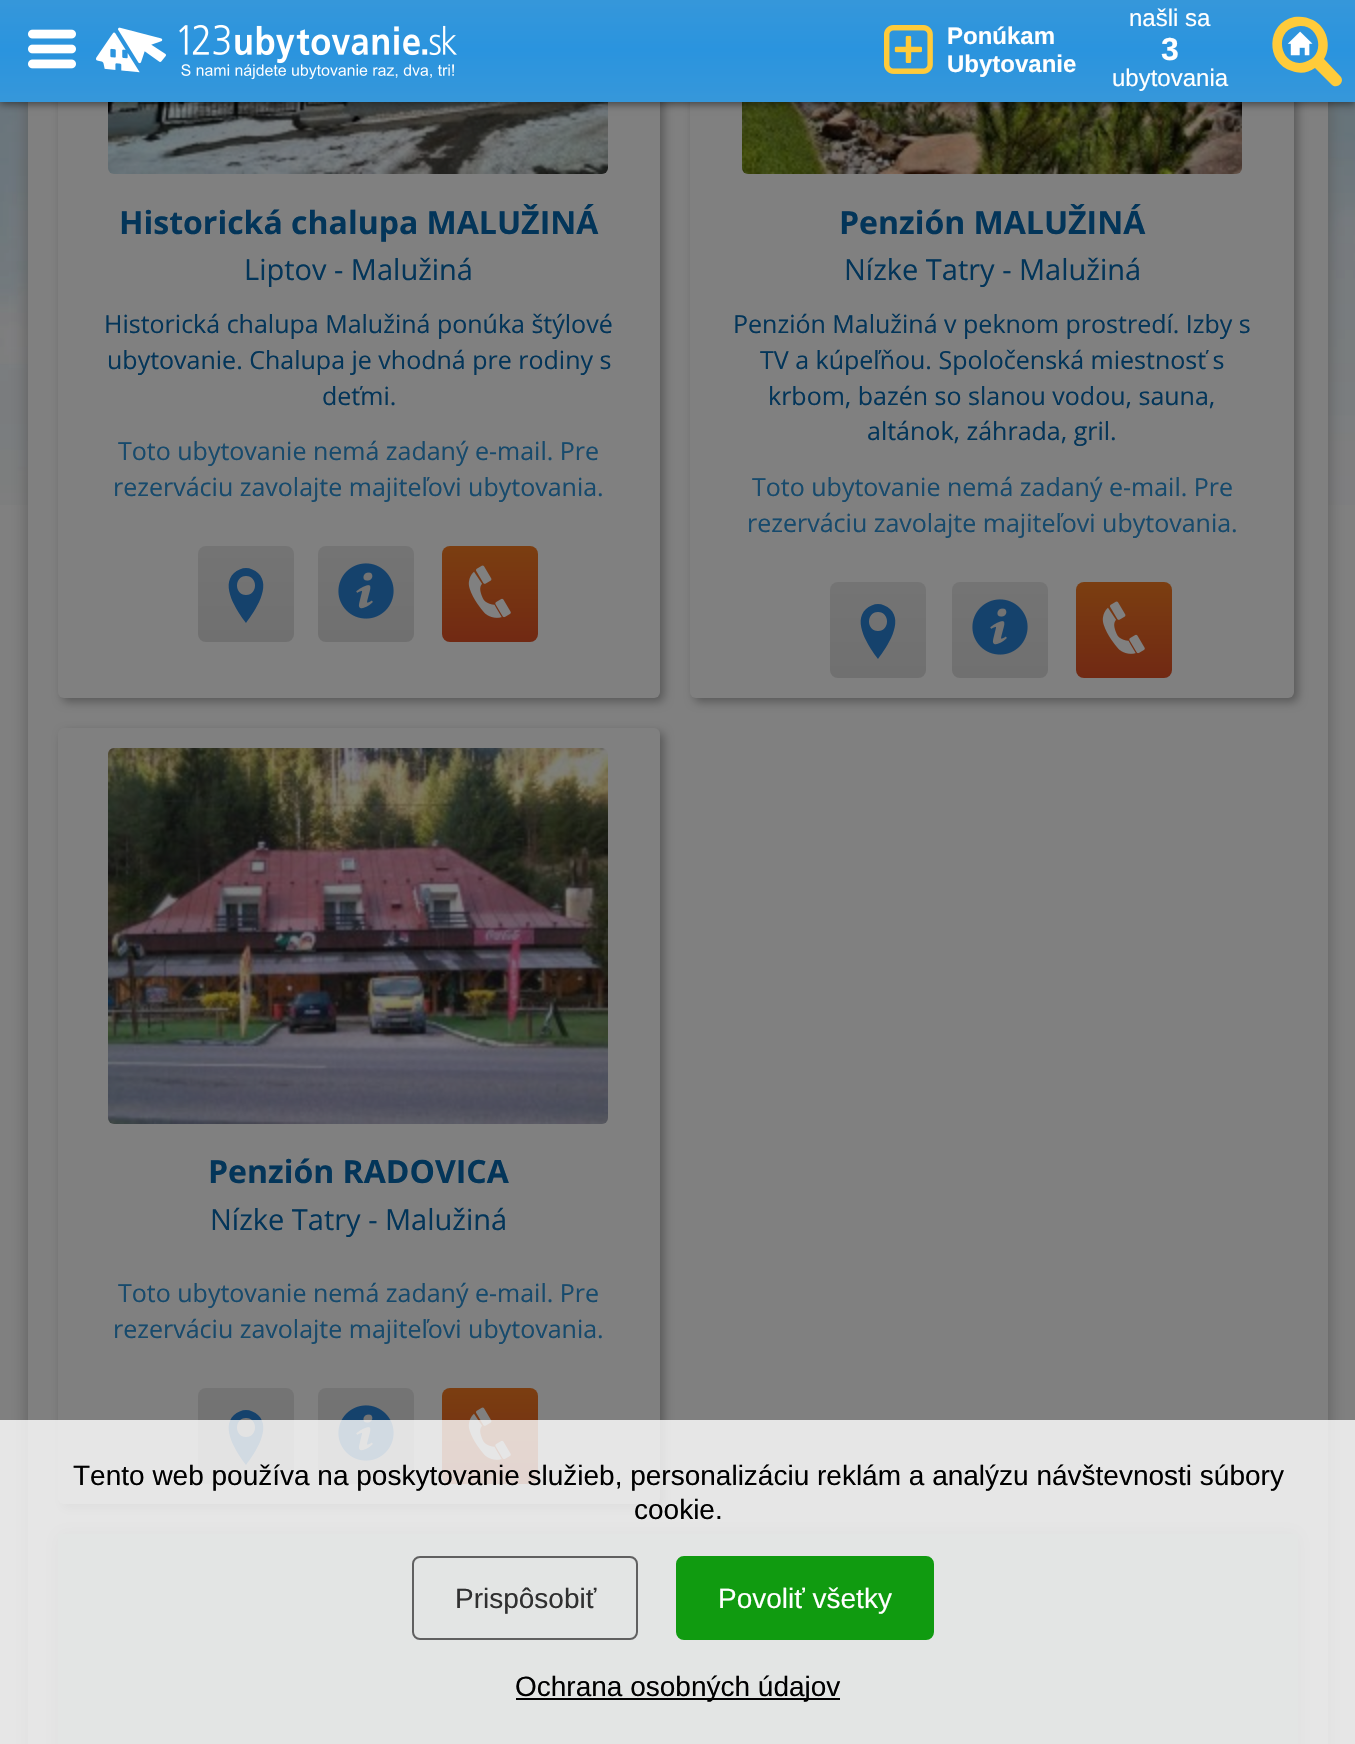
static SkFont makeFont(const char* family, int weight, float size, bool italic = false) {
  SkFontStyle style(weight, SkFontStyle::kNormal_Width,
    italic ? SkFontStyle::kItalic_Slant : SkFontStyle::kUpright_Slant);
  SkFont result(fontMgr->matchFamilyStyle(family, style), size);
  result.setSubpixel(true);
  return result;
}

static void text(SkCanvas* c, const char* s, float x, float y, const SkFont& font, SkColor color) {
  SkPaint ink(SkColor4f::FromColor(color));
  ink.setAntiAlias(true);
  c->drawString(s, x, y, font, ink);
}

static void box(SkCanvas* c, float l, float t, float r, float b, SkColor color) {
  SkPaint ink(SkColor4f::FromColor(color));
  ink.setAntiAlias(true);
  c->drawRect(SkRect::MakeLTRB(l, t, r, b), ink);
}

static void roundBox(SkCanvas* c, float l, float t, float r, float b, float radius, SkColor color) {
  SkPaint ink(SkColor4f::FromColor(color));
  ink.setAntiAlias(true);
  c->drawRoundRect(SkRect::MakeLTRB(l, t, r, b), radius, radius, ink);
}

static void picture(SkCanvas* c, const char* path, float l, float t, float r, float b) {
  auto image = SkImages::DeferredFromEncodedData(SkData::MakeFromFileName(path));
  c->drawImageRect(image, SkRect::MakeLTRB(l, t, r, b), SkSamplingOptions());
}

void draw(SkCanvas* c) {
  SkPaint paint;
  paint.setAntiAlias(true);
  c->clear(0xff808080);
  picture(c, "img_07.png", 0, 102, 1355, 505);
  paint.setColor(0xff5c5c5c);
  paint.setMaskFilter(SkMaskFilter::MakeBlur(kNormal_SkBlurStyle, 8));
  c->drawRect(SkRect::MakeLTRB(28, -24, 1328, 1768), paint);
  paint.setMaskFilter(nullptr);
  box(c, 28, 102, 1328, 1744, 0xff808080);
  paint.setColor(0x4d000000);
  paint.setMaskFilter(SkMaskFilter::MakeBlur(kNormal_SkBlurStyle, 5));
  c->drawRoundRect(SkRect::MakeLTRB(62, -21, 664, 702), 6, 6, paint);
  paint.setMaskFilter(nullptr);
  roundBox(c, 58, -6, 660, 698, 6, 0xff808080);
  picture(c, "img_08.png", 108, 102, 608, 174);
  paint.setMaskFilter(SkMaskFilter::MakeBlur(kNormal_SkBlurStyle, 5));
  c->drawRoundRect(SkRect::MakeLTRB(694, -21, 1298, 702), 6, 6, paint);
  paint.setMaskFilter(nullptr);
  roundBox(c, 690, -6, 1294, 698, 6, 0xff808080);
  picture(c, "img_11.png", 742, 102, 1242, 174);
  paint.setColor(0x80000000);
  paint.setMaskFilter(SkMaskFilter::MakeBlur(kNormal_SkBlurStyle, 4));
  c->drawRect(SkRect::MakeLTRB(0, 0, 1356, 104), paint);
  paint.setMaskFilter(nullptr);
  {
    const SkColor colors[] = {0xff3697da, 0xff2a94de, 0xff3697da};
    const float stops[] = {0, 0.5f, 1};
    const SkPoint ends[] = {{678, -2}, {678, 102}};
    paint.setShader(SkGradientShader::MakeLinear(ends, colors, stops, 3, SkTileMode::kClamp));
    paint.setAlpha(255);
  }
  c->drawRect(SkRect::MakeLTRB(0, 0, 1355, 102), paint);
  picture(c, "img_01.png", 28, 29, 76, 69);
  picture(c, "img_02.png", 96, 27, 166, 73);
  picture(c, "img_03.png", 179, 24, 457, 64);
  picture(c, "img_04.png", 181, 64, 454, 80);
  picture(c, "img_05.png", 884, 25, 933, 74);
  SkFont face1 = makeFont("Liberation Sans", 700, 24);
  text(c, "Ponúkam", 947, 44, face1, 0xffffffff);
  text(c, "Ubytovanie", 947, 72, face1, 0xffffffff);
  SkFont face2 = makeFont("Liberation Sans", 400, 24);
  text(c, "našli sa", 1129, 26, face2, 0xffffffff);
  SkFont face3 = makeFont("Liberation Sans", 700, 32);
  text(c, "3", 1161, 60, face3, 0xffffffff);
  text(c, "ubytovania", 1112, 86, face2, 0xffffffff);
  picture(c, "img_06.png", 1287, 31, 1313, 56);
  paint.setShader(nullptr);
  paint.setColor(0xffffcb3a);
  c->drawPath(SkPathBuilder().moveTo(1331, 84).lineTo(1315, 68).cubicTo(1308, 73, 1300, 74, 1292, 71).cubicTo(1265, 63, 1266, 23, 1294, 17).cubicTo(1301, 16, 1307, 17, 1313, 20).cubicTo(1327, 27, 1332, 46, 1324, 59).lineTo(1341, 77).cubicTo(1345, 83, 1336, 90, 1331, 84).close().moveTo(1305, 62).cubicTo(1328, 56, 1319, 20, 1295, 27).cubicTo(1272, 33, 1282, 69, 1305, 62).close().detach(), paint);
  SkFont face4 = makeFont("Open Sans", 700, 32);
  text(c, "Historická chalupa MALUŽINÁ", 119, 234, face4, 0xff033559);
  SkFont face5 = makeFont("Open Sans", 400, 29);
  text(c, "Liptov - Malužiná", 244, 280, face5, 0xff033559);
  SkFont face6 = makeFont("Open Sans", 400, 25);
  text(c, "Historická chalupa Malužiná ponúka štýlové", 104, 333, face6, 0xff033559);
  text(c, "ubytovanie. Chalupa je vhodná pre rodiny s", 107, 369, face6, 0xff033559);
  text(c, "deťmi.", 322, 405, face6, 0xff033559);
  text(c, "Toto ubytovanie nemá zadaný e-mail. Pre", 118, 460, face6, 0xff174a6c);
  text(c, "rezerváciu zavolajte majiteľovi ubytovania.", 113, 496, face6, 0xff174a6c);
  {
    const SkColor colors[] = {0xff747474, 0xff707070};
    const float stops[] = {0, 1};
    const SkPoint ends[] = {{246, 546}, {246, 642}};
    paint.setShader(SkGradientShader::MakeLinear(ends, colors, stops, 2, SkTileMode::kClamp));
    paint.setAlpha(255);
  }
  c->drawRoundRect(SkRect::MakeLTRB(198, 546, 294, 642), 8, 8, paint);
  paint.setShader(nullptr);
  paint.setColor(0xff15426c);
  c->drawPath(SkPathBuilder().moveTo(246, 568).cubicTo(242, 568, 237, 570, 234, 573).cubicTo(220, 586, 237, 611, 246, 623).cubicTo(255, 611, 272, 586, 258, 573).cubicTo(255, 570, 250, 568, 246, 568).close().moveTo(246, 595).cubicTo(234, 595, 234, 576, 246, 576).cubicTo(258, 576, 258, 595, 246, 595).close().detach(), paint);
  {
    const SkColor colors[] = {0xff747474, 0xff707070};
    const float stops[] = {0, 1};
    const SkPoint ends[] = {{366, 546}, {366, 642}};
    paint.setShader(SkGradientShader::MakeLinear(ends, colors, stops, 2, SkTileMode::kClamp));
    paint.setAlpha(255);
  }
  c->drawRoundRect(SkRect::MakeLTRB(318, 546, 414, 642), 8, 8, paint);
  picture(c, "img_09.png", 338, 563, 394, 619);
  {
    const SkColor colors[] = {0xff7b3e11, 0xff712913};
    const float stops[] = {0, 1};
    const SkPoint ends[] = {{490, 546}, {490, 642}};
    paint.setShader(SkGradientShader::MakeLinear(ends, colors, stops, 2, SkTileMode::kClamp));
    paint.setAlpha(255);
  }
  c->drawRoundRect(SkRect::MakeLTRB(442, 546, 538, 642), 8, 8, paint);
  picture(c, "img_10.png", 468, 565, 511, 618);
  text(c, "Penzión MALUŽINÁ", 839, 234, face4, 0xff033559);
  text(c, "Nízke Tatry - Malužiná", 844, 280, face5, 0xff033559);
  text(c, "Penzión Malužiná v peknom prostredí. Izby s", 733, 333, face6, 0xff033559);
  text(c, "TV a kúpeľňou. Spoločenská miestnosť s", 760, 369, face6, 0xff033559);
  text(c, "krbom, bazén so slanou vodou, sauna,", 768, 405, face6, 0xff033559);
  text(c, "altánok, záhrada, gril.", 867, 440, face6, 0xff033559);
  text(c, "Toto ubytovanie nemá zadaný e-mail. Pre", 752, 496, face6, 0xff174a6c);
  text(c, "rezerváciu zavolajte majiteľovi ubytovania.", 747, 532, face6, 0xff174a6c);
  {
    const SkColor colors[] = {0xff747474, 0xff707070};
    const float stops[] = {0, 1};
    const SkPoint ends[] = {{878, 582}, {878, 678}};
    paint.setShader(SkGradientShader::MakeLinear(ends, colors, stops, 2, SkTileMode::kClamp));
    paint.setAlpha(255);
  }
  c->drawRoundRect(SkRect::MakeLTRB(830, 582, 926, 678), 8, 8, paint);
  paint.setShader(nullptr);
  paint.setColor(0xff15426c);
  c->drawPath(SkPathBuilder().moveTo(878, 604).cubicTo(874, 604, 869, 606, 866, 609).cubicTo(852, 622, 869, 647, 878, 659).cubicTo(887, 647, 904, 622, 890, 609).cubicTo(887, 606, 882, 604, 878, 604).close().moveTo(878, 631).cubicTo(866, 631, 866, 612, 878, 612).cubicTo(890, 612, 890, 631, 878, 631).close().detach(), paint);
  {
    const SkColor colors[] = {0xff747474, 0xff707070};
    const float stops[] = {0, 1};
    const SkPoint ends[] = {{1000, 582}, {1000, 678}};
    paint.setShader(SkGradientShader::MakeLinear(ends, colors, stops, 2, SkTileMode::kClamp));
    paint.setAlpha(255);
  }
  c->drawRoundRect(SkRect::MakeLTRB(952, 582, 1048, 678), 8, 8, paint);
  picture(c, "img_09.png", 972, 599, 1028, 655);
  {
    const SkColor colors[] = {0xff7b3e11, 0xff712913};
    const float stops[] = {0, 1};
    const SkPoint ends[] = {{1124, 582}, {1124, 678}};
    paint.setShader(SkGradientShader::MakeLinear(ends, colors, stops, 2, SkTileMode::kClamp));
    paint.setAlpha(255);
  }
  c->drawRoundRect(SkRect::MakeLTRB(1076, 582, 1172, 678), 8, 8, paint);
  picture(c, "img_10.png", 1102, 601, 1145, 654);
  paint.setShader(nullptr);
  paint.setColor(0x4d000000);
  paint.setMaskFilter(SkMaskFilter::MakeBlur(kNormal_SkBlurStyle, 5));
  c->drawRoundRect(SkRect::MakeLTRB(62, 732, 664, 1508), 6, 6, paint);
  paint.setMaskFilter(nullptr);
  roundBox(c, 58, 728, 660, 1504, 6, 0xff808080);
  picture(c, "img_12.png", 108, 748, 608, 1124);
  text(c, "Penzión RADOVICA", 208, 1183, face4, 0xff033559);
  text(c, "Nízke Tatry - Malužiná", 210, 1230, face5, 0xff033559);
  text(c, "Toto ubytovanie nemá zadaný e-mail. Pre", 118, 1302, face6, 0xff174a6c);
  text(c, "rezerváciu zavolajte majiteľovi ubytovania.", 113, 1338, face6, 0xff174a6c);
  {
    const SkColor colors[] = {0xff747474, 0xff707070};
    const float stops[] = {0, 1};
    const SkPoint ends[] = {{246, 1388}, {246, 1484}};
    paint.setShader(SkGradientShader::MakeLinear(ends, colors, stops, 2, SkTileMode::kClamp));
    paint.setAlpha(255);
  }
  c->drawRoundRect(SkRect::MakeLTRB(198, 1388, 294, 1484), 8, 8, paint);
  paint.setShader(nullptr);
  paint.setColor(0xff15426c);
  c->drawPath(SkPathBuilder().moveTo(246, 1410).cubicTo(242, 1410, 237, 1412, 234, 1415).cubicTo(220, 1428, 237, 1453, 246, 1465).cubicTo(255, 1453, 272, 1428, 258, 1415).cubicTo(255, 1412, 250, 1410, 246, 1410).close().moveTo(246, 1437).cubicTo(234, 1437, 234, 1418, 246, 1418).cubicTo(258, 1418, 258, 1437, 246, 1437).close().detach(), paint);
  {
    const SkColor colors[] = {0xff747474, 0xff707070};
    const float stops[] = {0, 1};
    const SkPoint ends[] = {{366, 1388}, {366, 1484}};
    paint.setShader(SkGradientShader::MakeLinear(ends, colors, stops, 2, SkTileMode::kClamp));
    paint.setAlpha(255);
  }
  c->drawRoundRect(SkRect::MakeLTRB(318, 1388, 414, 1484), 8, 8, paint);
  picture(c, "img_09.png", 338, 1405, 394, 1461);
  {
    const SkColor colors[] = {0xff7b3e11, 0xff712913};
    const float stops[] = {0, 1};
    const SkPoint ends[] = {{490, 1388}, {490, 1484}};
    paint.setShader(SkGradientShader::MakeLinear(ends, colors, stops, 2, SkTileMode::kClamp));
    paint.setAlpha(255);
  }
  c->drawRoundRect(SkRect::MakeLTRB(442, 1388, 538, 1484), 8, 8, paint);
  picture(c, "img_10.png", 468, 1407, 511, 1460);
  paint.setShader(nullptr);
  paint.setColor(0xff5c5c5c);
  paint.setMaskFilter(SkMaskFilter::MakeBlur(kNormal_SkBlurStyle, 8));
  c->drawRect(SkRect::MakeLTRB(58, 1534, 1298, 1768), paint);
  paint.setMaskFilter(nullptr);
  box(c, 58, 1534, 1298, 1744, 0xff737c77);
  box(c, 0, 1420, 1355, 1744, 0xccffffff);
  SkFont face7 = makeFont("Liberation Sans", 400, 28);
  text(c, "Tento web používa na poskytovanie služieb, personalizáciu reklám a analýzu návštevnosti súbory", 73, 1485, face7, 0xff000000);
  text(c, "cookie.", 634, 1519, face7, 0xff000000);
  paint.setStyle(SkPaint::kStroke_Style);
  paint.setStrokeWidth(2);
  paint.setColor(0xff606060);
  c->drawRoundRect(SkRect::MakeLTRB(413, 1557, 637, 1639), 7, 7, paint);
  text(c, "Prispôsobiť", 455, 1608, face7, 0xff303030);
  paint.setStyle(SkPaint::kFill_Style);
  paint.setColor(0xff109b10);
  c->drawRoundRect(SkRect::MakeLTRB(677, 1557, 933, 1639), 7, 7, paint);
  paint.setStyle(SkPaint::kStroke_Style);
  c->drawRoundRect(SkRect::MakeLTRB(677, 1557, 933, 1639), 7, 7, paint);
  text(c, "Povoliť všetky", 718, 1608, face7, 0xffffffff);
  box(c, 516, 1698, 840, 1700, 0xff000000);
  text(c, "Ochrana osobných údajov", 515, 1696, face7, 0xff000000);
}
